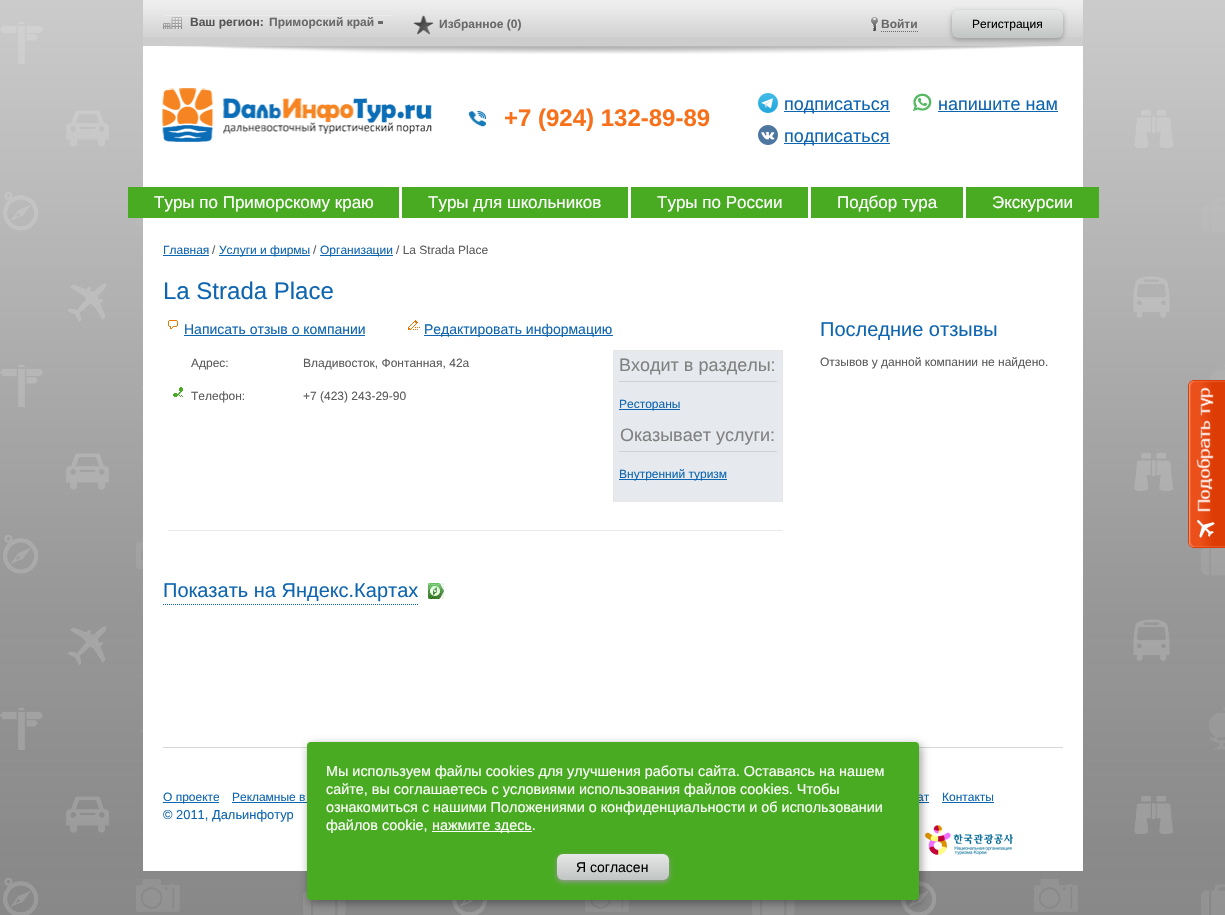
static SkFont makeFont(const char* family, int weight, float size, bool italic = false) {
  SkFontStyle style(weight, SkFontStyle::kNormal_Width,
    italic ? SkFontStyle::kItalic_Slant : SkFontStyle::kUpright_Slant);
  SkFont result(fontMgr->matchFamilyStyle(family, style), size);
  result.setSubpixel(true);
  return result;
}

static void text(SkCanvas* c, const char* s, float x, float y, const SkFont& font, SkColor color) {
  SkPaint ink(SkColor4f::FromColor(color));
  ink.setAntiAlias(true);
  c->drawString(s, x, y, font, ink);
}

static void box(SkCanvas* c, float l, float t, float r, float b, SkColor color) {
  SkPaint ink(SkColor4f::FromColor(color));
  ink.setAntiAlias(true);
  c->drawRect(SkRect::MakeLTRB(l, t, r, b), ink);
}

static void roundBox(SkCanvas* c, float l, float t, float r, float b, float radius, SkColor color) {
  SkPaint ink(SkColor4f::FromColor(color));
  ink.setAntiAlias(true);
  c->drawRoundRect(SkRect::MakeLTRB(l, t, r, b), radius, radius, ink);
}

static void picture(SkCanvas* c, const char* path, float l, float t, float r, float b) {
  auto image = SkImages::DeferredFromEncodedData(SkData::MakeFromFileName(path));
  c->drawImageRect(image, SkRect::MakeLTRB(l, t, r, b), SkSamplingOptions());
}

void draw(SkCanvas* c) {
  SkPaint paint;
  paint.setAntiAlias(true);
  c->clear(0xffffffff);
  picture(c, "img_01.png", 0, 0, 1225, 915);
  picture(c, "img_02.png", 0, 21, 1225, 915);
  box(c, 143, 46, 1083, 871, 0xffffffff);
  picture(c, "img_03.png", 166, 46, 1057, 54);
  box(c, 143, 37, 1083, 46, 0xffcdcdcd);
  picture(c, "img_04.png", 143, 0, 1083, 37);
  picture(c, "img_05.png", 163, 17, 182, 29);
  box(c, 163, 15, 393, 16, 0xffebebeb);
  SkFont face1 = makeFont("Liberation Sans", 700, 12);
  text(c, "Ваш регион:", 190, 26, face1, 0xff555555);
  text(c, "Приморский край", 269, 26, face1, 0xff696969);
  box(c, 378, 21, 383, 24, 0xff696969);
  picture(c, "img_06.png", 413, 15, 434, 35);
  text(c, "Избранное (0)", 439, 28, face1, 0xff696969);
  picture(c, "img_07.png", 871, 17, 878, 31);
  text(c, "Войти", 881, 28, face1, 0xff696969);
  paint.setStyle(SkPaint::kStroke_Style);
  paint.setStrokeWidth(1);
  paint.setColor(0xff696969);
  paint.setPathEffect(SkDashPathEffect::Make({{1, 1}}, 0));
  c->drawPath(SkPathBuilder().moveTo(881, 31.5f).lineTo(918, 31.5f).detach(), paint);
  paint.setPathEffect(nullptr);
  paint.setStyle(SkPaint::kFill_Style);
  paint.setColor(0xff999999);
  paint.setMaskFilter(SkMaskFilter::MakeBlur(kNormal_SkBlurStyle, 2.5f));
  c->drawRoundRect(SkRect::MakeLTRB(952, 12, 1063, 40), 6, 6, paint);
  paint.setMaskFilter(nullptr);
  {
    const SkColor colors[] = {0xffe6e8e7, 0xffc0c4c3};
    const float stops[] = {0, 1};
    const SkPoint ends[] = {{1008, 10}, {1008, 38}};
    paint.setShader(SkGradientShader::MakeLinear(ends, colors, stops, 2, SkTileMode::kClamp));
    paint.setAlpha(255);
  }
  c->drawRoundRect(SkRect::MakeLTRB(952, 10, 1063, 38), 6, 6, paint);
  SkFont face2 = makeFont("Liberation Sans", 400, 12);
  text(c, "Регистрация", 972, 28, face2, 0xff000000);
  picture(c, "img_08.png", 162, 88, 432, 142);
  picture(c, "img_09.png", 758, 93, 778, 113);
  box(c, 784, 111, 890, 112, 0xff0f66b0);
  SkFont face3 = makeFont("Liberation Sans", 400, 18);
  text(c, "подписаться", 784, 110, face3, 0xff0f66b0);
  picture(c, "img_10.png", 758, 125, 778, 145);
  box(c, 784, 143, 890, 144, 0xff0f66b0);
  text(c, "подписаться", 784, 142, face3, 0xff0f66b0);
  picture(c, "img_11.png", 913, 93, 932, 111);
  text(c, "напишите нам", 938, 110, face3, 0xff0f66b0);
  box(c, 938, 111, 1058, 112, 0xff0f66b0);
  picture(c, "img_12.png", 468, 111, 486, 127);
  SkFont face4 = makeFont("Liberation Sans", 700, 24);
  text(c, "+7 (924) 132-89-89", 504, 126, face4, 0xfff8701a);
  box(c, 128, 187, 399, 218, 0xff49ab22);
  SkFont face5 = makeFont("Liberation Sans", 400, 17);
  text(c, "Туры по Приморскому краю", 154, 208, face5, 0xffffffff);
  box(c, 402, 187, 628, 218, 0xff49ab22);
  text(c, "Туры для школьников", 428, 208, face5, 0xffffffff);
  box(c, 631, 187, 808, 218, 0xff49ab22);
  text(c, "Туры по России", 657, 208, face5, 0xffffffff);
  box(c, 811, 187, 963, 218, 0xff49ab22);
  text(c, "Подбор тура", 837, 208, face5, 0xffffffff);
  box(c, 966, 187, 1099, 218, 0xff49ab22);
  text(c, "Экскурсии", 992, 208, face5, 0xffffffff);
  text(c, "Главная", 163, 254, face2, 0xff0f66b0);
  box(c, 163, 255, 209, 256, 0xff0f66b0);
  text(c, "/", 212, 254, face2, 0xff5b5b5b);
  box(c, 219, 255, 310, 256, 0xff0f66b0);
  text(c, "Услуги и фирмы", 219, 254, face2, 0xff0f66b0);
  text(c, "/", 313, 254, face2, 0xff5b5b5b);
  box(c, 320, 255, 393, 256, 0xff0f66b0);
  text(c, "Организации", 320, 254, face2, 0xff0f66b0);
  text(c, "/ La Strada Place", 396, 254, face2, 0xff5b5b5b);
  SkFont face6 = makeFont("Liberation Sans", 400, 24);
  text(c, "La Strada Place", 163, 299, face6, 0xff0f66b0);
  picture(c, "img_13.png", 168, 320, 178, 329);
  SkFont face7 = makeFont("Liberation Sans", 400, 14);
  text(c, "Написать отзыв о компании", 184, 334, face7, 0xff0f66b0);
  box(c, 184, 335, 365, 336, 0xff0f66b0);
  picture(c, "img_14.png", 408, 320, 420, 330);
  box(c, 424, 335, 613, 336, 0xff0f66b0);
  text(c, "Редактировать информацию", 424, 334, face7, 0xff0f66b0);
  text(c, "Адрес:", 191, 367, face2, 0xff5b5b5b);
  text(c, "Владивосток, Фонтанная, 42а", 303, 367, face2, 0xff5b5b5b);
  picture(c, "img_15.png", 173, 387, 183, 397);
  text(c, "Телефон:", 191, 400, face2, 0xff5b5b5b);
  text(c, "+7 (423) 243-29-90", 303, 400, face2, 0xff5b5b5b);
  paint.setShader(nullptr);
  paint.setColor(0xffe6eaee);
  c->drawRect(SkRect::MakeLTRB(613.5f, 350.5f, 782.5f, 501.5f), paint);
  paint.setStyle(SkPaint::kStroke_Style);
  paint.setColor(0xffe6e6e6);
  c->drawRect(SkRect::MakeLTRB(613.5f, 350.5f, 782.5f, 501.5f), paint);
  box(c, 619, 381, 777, 382, 0xffcdd1d6);
  text(c, "Входит в разделы:", 619, 371, face3, 0xff818181);
  box(c, 619, 409, 680, 410, 0xff0f66b0);
  text(c, "Рестораны", 619, 408, face2, 0xff0f66b0);
  box(c, 619, 451, 777, 452, 0xffcdd1d6);
  text(c, "Оказывает услуги:", 620, 441, face3, 0xff818181);
  box(c, 619, 479, 727, 480, 0xff0f66b0);
  text(c, "Внутренний туризм", 619, 478, face2, 0xff0f66b0);
  box(c, 168, 530, 783, 531, 0xffe6eaee);
  paint.setColor(0xff0f66b0);
  paint.setPathEffect(SkDashPathEffect::Make({{1, 1}}, 0));
  c->drawPath(SkPathBuilder().moveTo(163, 604.5f).lineTo(418, 604.5f).detach(), paint);
  paint.setPathEffect(nullptr);
  SkFont face8 = makeFont("Liberation Sans", 400, 20);
  text(c, "Показать на Яндекс.Картах", 163, 597, face8, 0xff0f66b0);
  picture(c, "img_16.png", 428, 583, 444, 599);
  text(c, "Последние отзывы", 820, 336, face8, 0xff0f66b0);
  text(c, "Отзывов у данной компании не найдено.", 820, 366, face2, 0xff5b5b5b);
  picture(c, "img_17.png", 1188, 380, 1225, 548);
  box(c, 163, 747, 1063, 748, 0xffd6d6d6);
  box(c, 163, 802, 219, 803, 0xff0f66b0);
  text(c, "О проекте", 163, 801, face2, 0xff0f66b0);
  text(c, "Рекламные в", 232, 801, face2, 0xff0f66b0);
  box(c, 232, 802, 307, 803, 0xff0f66b0);
  text(c, "ат", 917, 801, face2, 0xff0f66b0);
  box(c, 919, 802, 929, 803, 0xff0f66b0);
  text(c, "Контакты", 942, 801, face2, 0xff0f66b0);
  box(c, 942, 802, 994, 803, 0xff0f66b0);
  SkFont face9 = makeFont("Liberation Sans", 400, 12.9f);
  text(c, "© 2011, Дальинфотур", 163, 819, face9, 0xff0f66b0);
  picture(c, "img_18.png", 925, 825, 1013, 855);
  paint.setStyle(SkPaint::kFill_Style);
  paint.setColor(0x66000000);
  paint.setMaskFilter(SkMaskFilter::MakeBlur(kNormal_SkBlurStyle, 5));
  c->drawRoundRect(SkRect::MakeLTRB(309, 745, 921, 903), 4, 4, paint);
  paint.setMaskFilter(nullptr);
  roundBox(c, 307, 742, 919, 900, 4, 0xff49ab22);
  SkFont face10 = makeFont("Liberation Sans", 400, 14.4f);
  text(c, "Мы используем файлы cookies для улучшения работы сайта. Оставаясь на нашем", 326, 776, face10, 0xffffffff);
  text(c, "сайте, вы соглашаетесь с условиями использования файлов cookies. Чтобы", 326, 794, face10, 0xffffffff);
  text(c, "ознакомиться с нашими Положениями о конфиденциальности и об использовании", 326, 812, face10, 0xffffffff);
  text(c, "файлов cookie,", 326, 830, face10, 0xffffffff);
  box(c, 432, 831, 532, 832, 0xffffffff);
  text(c, "нажмите здесь.", 432, 830, face10, 0xffffffff);
  paint.setColor(0xff999999);
  paint.setMaskFilter(SkMaskFilter::MakeBlur(kNormal_SkBlurStyle, 2.5f));
  c->drawRoundRect(SkRect::MakeLTRB(557, 856, 669, 882), 6, 6, paint);
  paint.setMaskFilter(nullptr);
  {
    const SkColor colors[] = {0xffe6e8e7, 0xffc0c4c3};
    const float stops[] = {0, 1};
    const SkPoint ends[] = {{613, 854}, {613, 880}};
    paint.setShader(SkGradientShader::MakeLinear(ends, colors, stops, 2, SkTileMode::kClamp));
    paint.setAlpha(255);
  }
  c->drawRoundRect(SkRect::MakeLTRB(557, 854, 669, 880), 6, 6, paint);
  text(c, "Я согласен", 576, 872, face7, 0xff000000);
}
